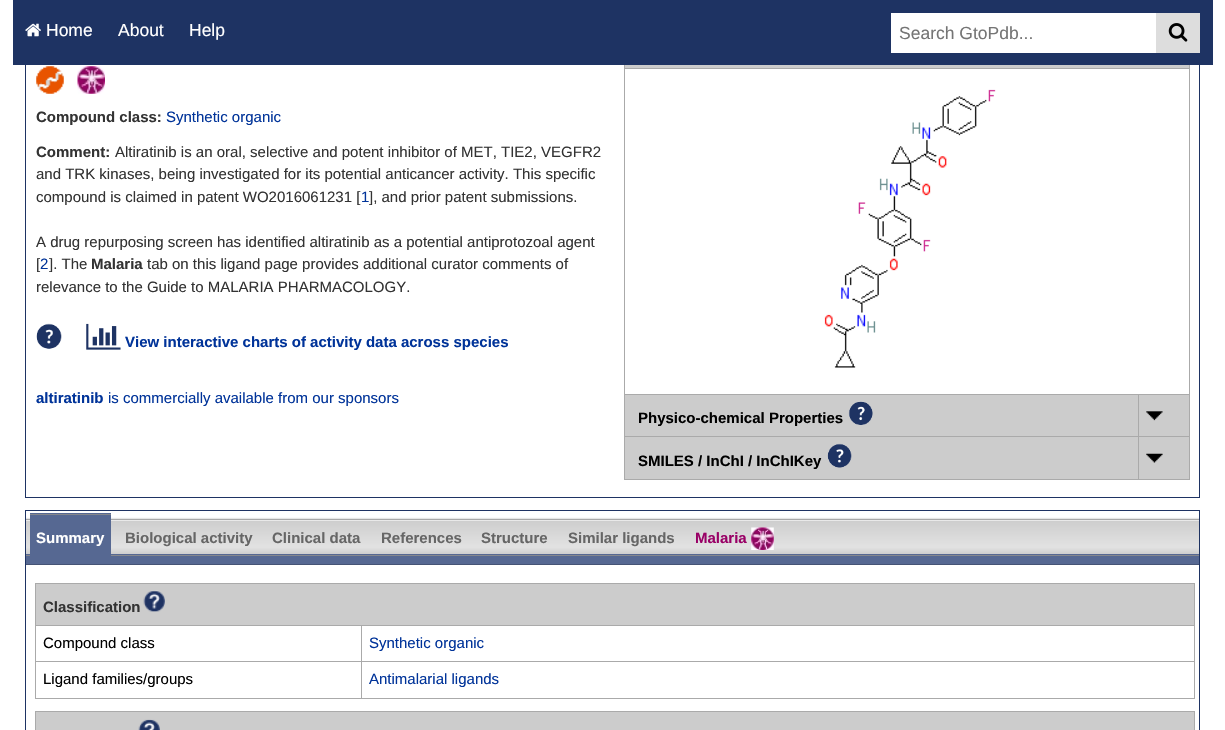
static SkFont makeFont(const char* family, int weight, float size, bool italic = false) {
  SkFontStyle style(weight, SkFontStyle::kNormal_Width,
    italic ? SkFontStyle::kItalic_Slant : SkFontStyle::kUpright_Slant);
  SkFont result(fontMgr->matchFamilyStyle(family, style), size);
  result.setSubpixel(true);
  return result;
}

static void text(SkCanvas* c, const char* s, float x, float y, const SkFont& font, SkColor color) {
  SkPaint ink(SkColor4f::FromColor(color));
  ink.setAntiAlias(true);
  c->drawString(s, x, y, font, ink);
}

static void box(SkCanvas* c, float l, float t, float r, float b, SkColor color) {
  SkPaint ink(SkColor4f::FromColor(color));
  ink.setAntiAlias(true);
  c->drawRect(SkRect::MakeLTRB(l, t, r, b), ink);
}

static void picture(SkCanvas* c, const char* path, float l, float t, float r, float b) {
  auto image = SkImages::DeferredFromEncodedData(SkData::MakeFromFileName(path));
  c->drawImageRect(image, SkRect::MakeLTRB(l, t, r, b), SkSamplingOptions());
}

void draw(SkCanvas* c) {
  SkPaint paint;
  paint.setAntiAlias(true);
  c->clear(0xffffffff);
  paint.setStyle(SkPaint::kStroke_Style);
  paint.setStrokeWidth(1);
  paint.setColor(0xff1e3363);
  c->drawRect(SkRect::MakeLTRB(25.5f, 20.5f, 1199.5f, 497.5f), paint);
  box(c, 13, 0, 1213, 65, 0xff1e3363);
  picture(c, "img_01.png", 25, 23, 41, 37);
  SkFont face1 = makeFont("Liberation Sans", 400, 17.5f);
  text(c, "Home", 46, 36, face1, 0xffffffff);
  text(c, "About", 118, 36, face1, 0xffffffff);
  text(c, "Help", 189, 36, face1, 0xffffffff);
  box(c, 891, 13, 1156, 53, 0xffffffff);
  text(c, "Search GtoPdb...", 899, 39, face1, 0xff757575);
  box(c, 1156, 13, 1200, 53, 0xffdddddd);
  picture(c, "img_02.png", 1168, 23, 1188, 42);
  picture(c, "img_03.png", 36, 66, 64, 94);
  picture(c, "img_04.png", 77, 66, 105, 94);
  SkFont face2 = makeFont("Liberation Sans", 700, 15);
  text(c, "Compound class:", 36, 122, face2, 0xff333333);
  SkFont face3 = makeFont("Liberation Sans", 400, 15);
  text(c, "Synthetic organic", 166, 122, face3, 0xff003399);
  text(c, "Comment:", 36, 157, face2, 0xff333333);
  text(c, "Altiratinib is an oral, selective and potent inhibitor of MET, TIE2, VEGFR2", 115, 157, face3, 0xff333333);
  text(c, "and TRK kinases, being investigated for its potential anticancer activity. This specific", 36, 179, face3, 0xff333333);
  text(c, "compound is claimed in patent WO2016061231 [", 36, 202, face3, 0xff333333);
  text(c, "1", 361, 202, face3, 0xff003399);
  text(c, "], and prior patent submissions.", 369, 202, face3, 0xff333333);
  text(c, "A drug repurposing screen has identified altiratinib as a potential antiprotozoal agent", 36, 247, face3, 0xff333333);
  text(c, "[", 36, 269, face3, 0xff333333);
  text(c, "2", 40, 269, face3, 0xff003399);
  text(c, "]. The", 49, 269, face3, 0xff333333);
  text(c, "Malaria", 91, 269, face2, 0xff333333);
  text(c, "tab on this ligand page provides additional curator comments of", 147, 269, face3, 0xff333333);
  text(c, "relevance to the Guide to MALARIA PHARMACOLOGY.", 36, 292, face3, 0xff333333);
  picture(c, "img_05.png", 36, 323, 62, 349);
  picture(c, "img_06.png", 86, 323, 121, 350);
  text(c, "View interactive charts of activity data across species", 125, 347, face2, 0xff003399);
  text(c, "altiratinib", 36, 403, face2, 0xff003399);
  text(c, "is commercially available from our sponsors", 108, 403, face3, 0xff003399);
  box(c, 624, 68, 1190, 69, 0xffaaaaaa);
  box(c, 624, 394, 1190, 395, 0xffaaaaaa);
  box(c, 624, 436, 1190, 437, 0xffaaaaaa);
  box(c, 624, 479, 1190, 480, 0xffaaaaaa);
  box(c, 1189, 436, 1190, 480, 0xffaaaaaa);
  box(c, 1189, 394, 1190, 438, 0xffaaaaaa);
  box(c, 1189, 65, 1190, 395, 0xffaaaaaa);
  box(c, 624, 436, 625, 480, 0xffaaaaaa);
  box(c, 624, 394, 625, 438, 0xffaaaaaa);
  box(c, 624, 65, 625, 395, 0xffaaaaaa);
  picture(c, "img_07.png", 824, 89, 996, 368);
  box(c, 625, 65, 1189, 68, 0xffcccccc);
  box(c, 625, 395, 1138, 436, 0xffcccccc);
  text(c, "Physico-chemical Properties", 638, 423, face2, 0xff000000);
  picture(c, "img_08.png", 848, 401, 873, 425);
  box(c, 1139, 395, 1189, 436, 0xffcccccc);
  picture(c, "img_09.png", 1146, 411, 1163, 421);
  box(c, 625, 437, 1138, 479, 0xffcccccc);
  text(c, "SMILES / InChI / InChIKey", 638, 466, face2, 0xff000000);
  picture(c, "img_10.png", 827, 443, 852, 468);
  box(c, 1139, 437, 1189, 479, 0xffcccccc);
  box(c, 1138, 394, 1139, 480, 0xffaaaaaa);
  picture(c, "img_11.png", 1146, 453, 1163, 463);
  c->drawRect(SkRect::MakeLTRB(25.5f, 510.5f, 1199.5f, 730.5f), paint);
  paint.setStyle(SkPaint::kFill_Style);
  paint.setColor(0x1a000000);
  paint.setMaskFilter(SkMaskFilter::MakeBlur(kNormal_SkBlurStyle, 0.5f));
  c->drawRect(SkRect::MakeLTRB(26, 518, 1199, 553), paint);
  paint.setMaskFilter(nullptr);
  paint.setColor(0xff455375);
  c->drawPath(SkPathBuilder().moveTo(26, 530).lineTo(26, 565).lineTo(1199, 565).lineTo(1199, 530).lineTo(1199, 554).lineTo(26, 554).close().detach(), paint);
  paint.setColor(0xff566892);
  c->drawPath(SkPathBuilder().moveTo(26, 529).lineTo(26, 564).lineTo(1199, 564).lineTo(1199, 529).lineTo(1199, 554).lineTo(26, 554).close().detach(), paint);
  paint.setColor(0xff85878c);
  c->drawPath(SkPathBuilder().moveTo(26, 521).lineTo(26, 556).lineTo(1199, 556).lineTo(1199, 521).lineTo(1199, 554).lineTo(26, 554).close().detach(), paint);
  paint.setColor(0xff566892);
  c->drawPath(SkPathBuilder().moveTo(26, 520).lineTo(26, 555).lineTo(1199, 555).lineTo(1199, 520).lineTo(1199, 554).lineTo(26, 554).close().detach(), paint);
  {
    const SkColor colors[] = {0xffcdcdcd, 0xffe2e2e2, 0xffcdcdcd};
    const float stops[] = {0, 0.8f, 1};
    const SkPoint ends[] = {{613, 520}, {613, 554}};
    paint.setShader(SkGradientShader::MakeLinear(ends, colors, stops, 3, SkTileMode::kClamp));
    paint.setAlpha(255);
  }
  c->drawRect(SkRect::MakeLTRB(26, 521, 1199, 554), paint);
  box(c, 26, 520, 1199, 521, 0xffe9e9e9);
  box(c, 26, 519, 1199, 520, 0xffa8a8a8);
  box(c, 30, 513, 111, 514, 0xff566892);
  box(c, 30, 514, 111, 515, 0xff85878c);
  box(c, 30, 515, 111, 556, 0xff566892);
  text(c, "Summary", 36, 543, face2, 0xffffffff);
  text(c, "Biological activity", 125, 543, face2, 0xff666666);
  text(c, "Clinical data", 272, 543, face2, 0xff666666);
  text(c, "References", 381, 543, face2, 0xff666666);
  text(c, "Structure", 481, 543, face2, 0xff666666);
  text(c, "Similar ligands", 568, 543, face2, 0xff666666);
  text(c, "Malaria", 695, 543, face2, 0xff990066);
  picture(c, "img_12.png", 751, 527, 774, 550);
  box(c, 36, 584, 1194, 625, 0xffcccccc);
  box(c, 35, 583, 1195, 584, 0xffaaaaaa);
  box(c, 361, 625, 1195, 626, 0xffaaaaaa);
  box(c, 361, 661, 1195, 662, 0xffaaaaaa);
  box(c, 1194, 661, 1195, 699, 0xffaaaaaa);
  box(c, 1194, 625, 1195, 663, 0xffaaaaaa);
  box(c, 1194, 583, 1195, 626, 0xffaaaaaa);
  box(c, 361, 698, 1195, 699, 0xffaaaaaa);
  box(c, 361, 661, 362, 699, 0xffaaaaaa);
  box(c, 35, 661, 363, 662, 0xffaaaaaa);
  box(c, 361, 625, 362, 663, 0xffaaaaaa);
  box(c, 35, 625, 363, 626, 0xffaaaaaa);
  box(c, 35, 698, 363, 699, 0xffaaaaaa);
  box(c, 35, 661, 36, 699, 0xffaaaaaa);
  box(c, 35, 625, 36, 663, 0xffaaaaaa);
  box(c, 35, 583, 36, 626, 0xffaaaaaa);
  text(c, "Classification", 43, 612, face2, 0xff333333);
  picture(c, "img_13.png", 143, 590, 165, 612);
  text(c, "Compound class", 43, 648, face3, 0xff000000);
  text(c, "Synthetic organic", 369, 648, face3, 0xff003399);
  text(c, "Ligand families/groups", 43, 684, face3, 0xff000000);
  text(c, "Antimalarial ligands", 369, 684, face3, 0xff003399);
  box(c, 36, 712, 1194, 730, 0xffcccccc);
  box(c, 35, 711, 1195, 712, 0xffaaaaaa);
  box(c, 1194, 711, 1195, 730, 0xffaaaaaa);
  box(c, 35, 711, 36, 730, 0xffaaaaaa);
  picture(c, "img_14.png", 138, 719, 160, 730);
}
